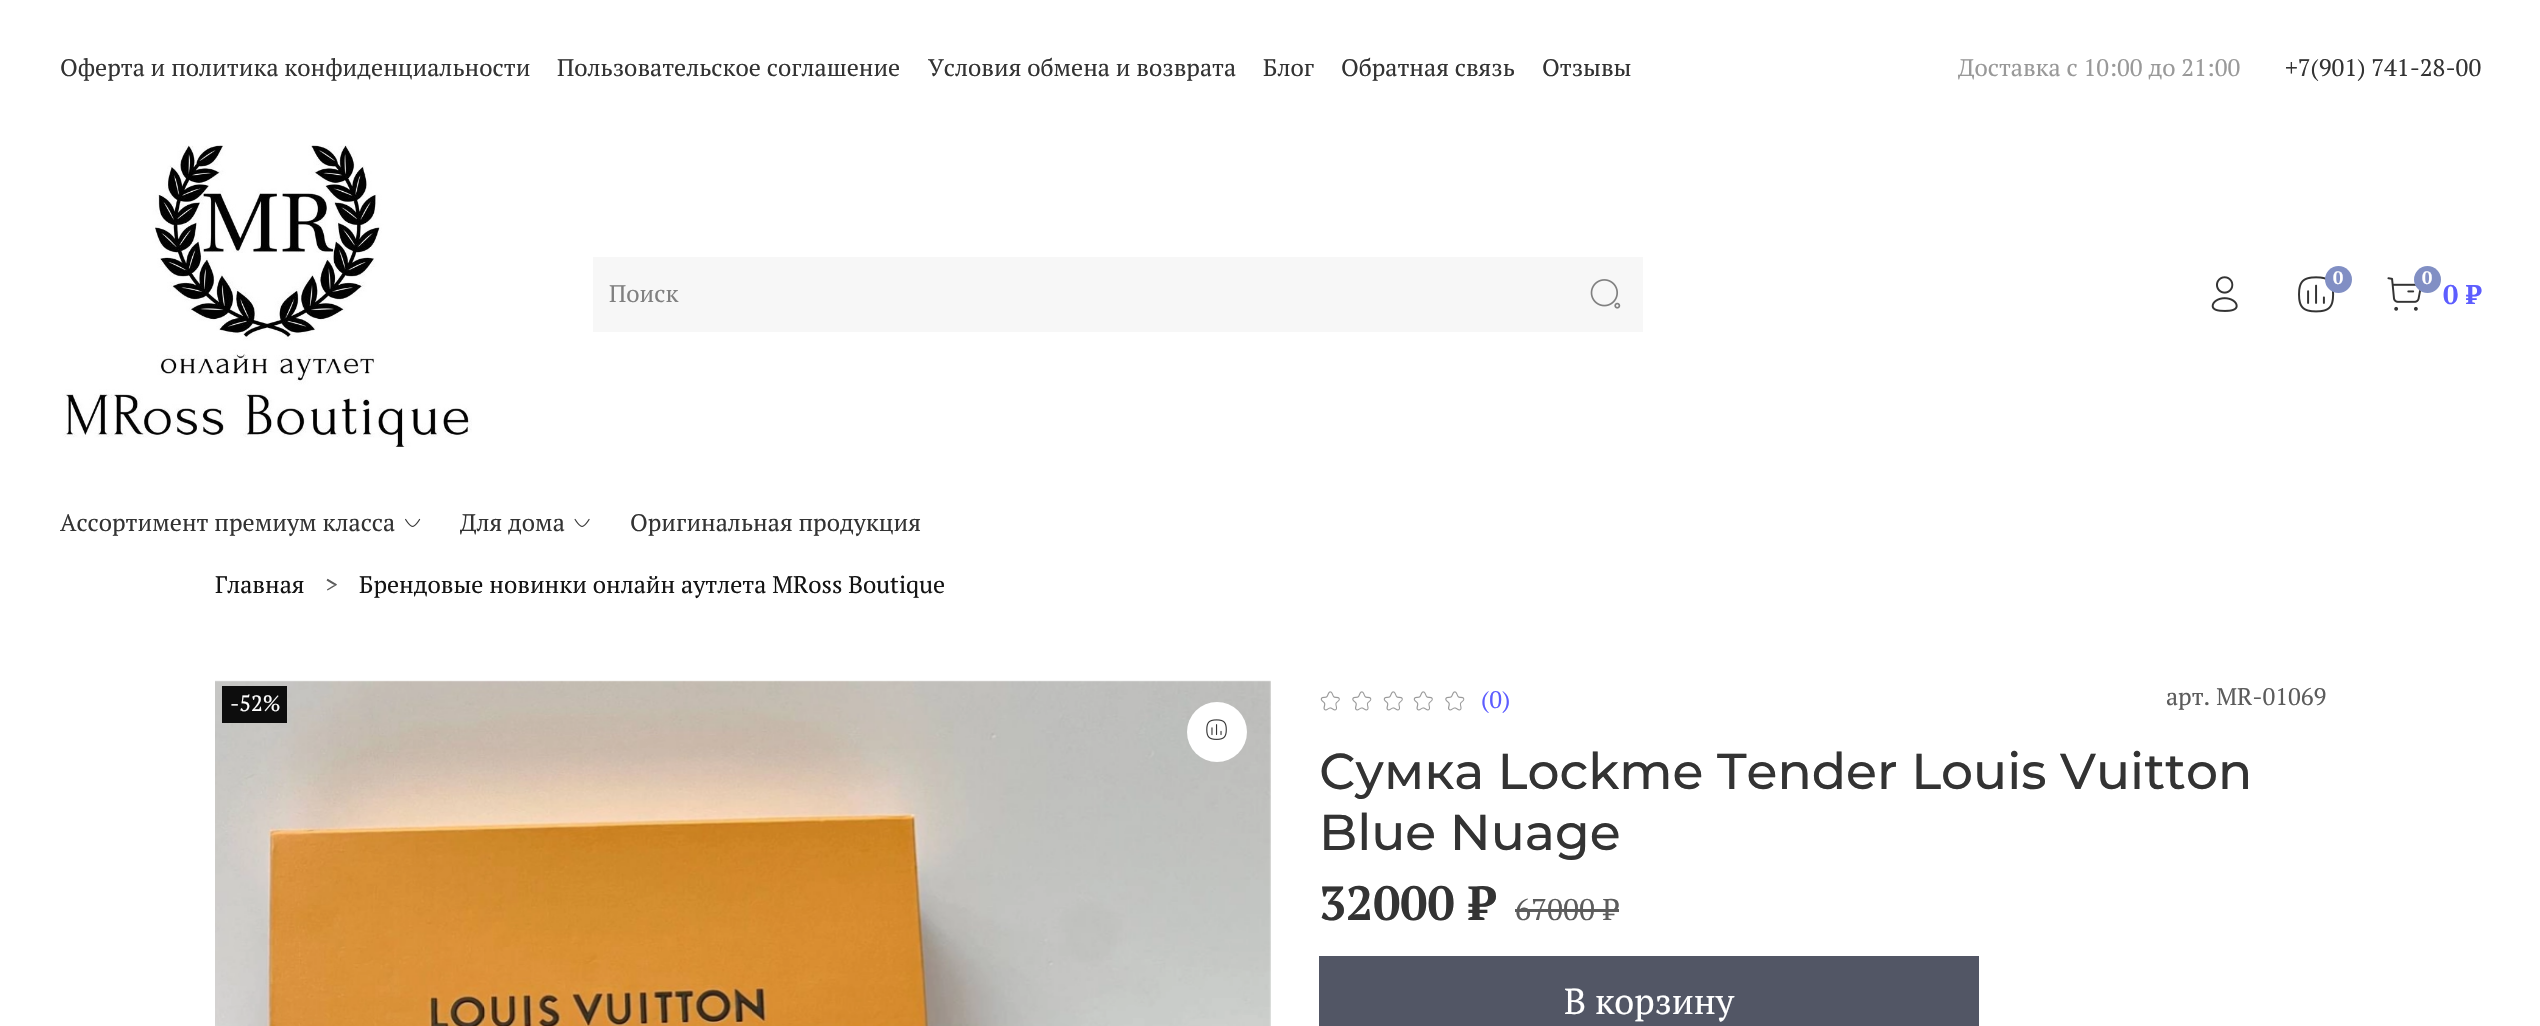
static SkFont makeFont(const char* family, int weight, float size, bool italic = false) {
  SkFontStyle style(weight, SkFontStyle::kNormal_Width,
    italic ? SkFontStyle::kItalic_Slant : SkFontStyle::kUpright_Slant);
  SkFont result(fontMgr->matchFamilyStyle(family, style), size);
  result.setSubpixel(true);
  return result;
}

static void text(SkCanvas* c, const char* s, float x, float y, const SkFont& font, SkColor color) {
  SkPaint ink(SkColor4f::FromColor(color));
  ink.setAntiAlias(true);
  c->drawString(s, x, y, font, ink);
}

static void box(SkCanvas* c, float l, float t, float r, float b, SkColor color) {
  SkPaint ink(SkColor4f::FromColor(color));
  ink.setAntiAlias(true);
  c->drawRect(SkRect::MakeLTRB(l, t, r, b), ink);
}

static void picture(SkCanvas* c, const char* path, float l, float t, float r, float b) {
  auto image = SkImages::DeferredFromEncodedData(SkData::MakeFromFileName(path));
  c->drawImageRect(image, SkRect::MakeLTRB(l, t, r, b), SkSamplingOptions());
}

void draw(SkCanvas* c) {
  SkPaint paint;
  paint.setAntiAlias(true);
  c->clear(0xffffffff);
  SkFont face1 = makeFont("PT Serif", 400, 24);
  text(c, "Оферта и политика конфиденциальности", 60, 76, face1, 0xff333333);
  text(c, "Пользовательское соглашение", 557, 76, face1, 0xff333333);
  text(c, "Условия обмена и возврата", 928, 76, face1, 0xff333333);
  text(c, "Блог", 1263, 76, face1, 0xff333333);
  text(c, "Обратная связь", 1341, 76, face1, 0xff333333);
  text(c, "Отзывы", 1542, 76, face1, 0xff333333);
  text(c, "Доставка с 10:00 до 21:00", 1958, 76, face1, 0xff999999);
  text(c, "+7(901) 741-28-00", 2285, 76, face1, 0xff333333);
  picture(c, "img_01.png", 62, 145, 472, 447);
  box(c, 593, 257, 1643, 332, 0xfff7f7f7);
  text(c, "Поиск", 609, 302, face1, 0xff808080);
  picture(c, "img_02.png", 1590, 279, 1621, 309);
  picture(c, "img_03.png", 2211, 276, 2238, 312);
  picture(c, "img_04.png", 2298, 276, 2335, 313);
  paint.setColor(0xff818fc4);
  c->drawCircle(2338.5f, 279.5f, 13.5f, paint);
  SkFont face2 = makeFont("PT Serif", 700, 18);
  text(c, "0", 2333, 284, face2, 0xffffffff);
  picture(c, "img_05.png", 2387, 277, 2421, 311);
  c->drawCircle(2427.5f, 279.5f, 13.5f, paint);
  text(c, "0", 2422, 284, face2, 0xffffffff);
  SkFont face3 = makeFont("PT Serif", 700, 27);
  text(c, "0 ₽", 2443, 304, face3, 0xff5d5dff);
  text(c, "Ассортимент премиум класса", 60, 531, face1, 0xff333333);
  picture(c, "img_06.png", 405, 518, 421, 527);
  text(c, "Для дома", 460, 531, face1, 0xff333333);
  picture(c, "img_07.png", 574, 518, 590, 527);
  text(c, "Оригинальная продукция", 630, 531, face1, 0xff333333);
  text(c, "Главная", 215, 593, face1, 0xff141414);
  text(c, ">", 325, 593, face1, 0xff5c5c5c);
  text(c, "Брендовые новинки онлайн аутлета MRoss Boutique", 359, 593, face1, 0xff141414);
  picture(c, "img_08.png", 215, 680, 1271, 1026);
  box(c, 222, 686, 287, 723, 0xff0d0d0d);
  SkFont face4 = makeFont("PT Serif", 400, 22);
  text(c, "-52%", 230, 711, face4, 0xffffffff);
  paint.setColor(0xffffffff);
  c->drawCircle(1217, 732, 30, paint);
  picture(c, "img_09.png", 1206, 719, 1227, 740);
  picture(c, "img_10.png", 1320, 691, 1340, 711);
  picture(c, "img_11.png", 1352, 691, 1372, 711);
  picture(c, "img_10.png", 1383, 691, 1403, 711);
  picture(c, "img_10.png", 1413, 691, 1433, 711);
  picture(c, "img_11.png", 1445, 691, 1465, 711);
  text(c, "(0)", 1481, 708, face1, 0xff5d5dff);
  text(c, "арт. MR-01069", 2166, 705, face1, 0xff5c5c5c);
  SkFont face5 = makeFont("Montserrat", 500, 50.4f);
  text(c, "Сумка Lockme Tender Louis Vuitton", 1319, 789, face5, 0xff333333);
  text(c, "Blue Nuage", 1319, 850, face5, 0xff333333);
  SkFont face6 = makeFont("PT Serif", 700, 48);
  text(c, "32000 ₽", 1319, 920, face6, 0xff333333);
  SkFont face7 = makeFont("PT Serif", 400, 30);
  text(c, "67000 ₽", 1515, 920, face7, 0xff5c5c5c);
  box(c, 1515, 909, 1619, 912, 0xff5c5c5c);
  box(c, 1319, 956, 1979, 1026, 0xff525665);
  SkFont face8 = makeFont("PT Serif", 400, 36);
  text(c, "В корзину", 1564, 1014, face8, 0xffffffff);
}
